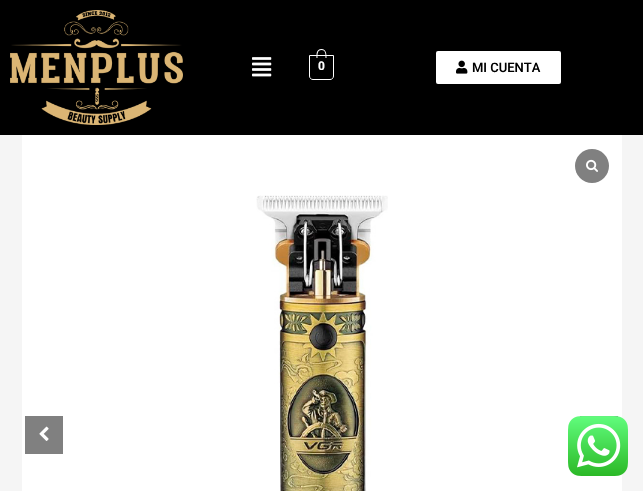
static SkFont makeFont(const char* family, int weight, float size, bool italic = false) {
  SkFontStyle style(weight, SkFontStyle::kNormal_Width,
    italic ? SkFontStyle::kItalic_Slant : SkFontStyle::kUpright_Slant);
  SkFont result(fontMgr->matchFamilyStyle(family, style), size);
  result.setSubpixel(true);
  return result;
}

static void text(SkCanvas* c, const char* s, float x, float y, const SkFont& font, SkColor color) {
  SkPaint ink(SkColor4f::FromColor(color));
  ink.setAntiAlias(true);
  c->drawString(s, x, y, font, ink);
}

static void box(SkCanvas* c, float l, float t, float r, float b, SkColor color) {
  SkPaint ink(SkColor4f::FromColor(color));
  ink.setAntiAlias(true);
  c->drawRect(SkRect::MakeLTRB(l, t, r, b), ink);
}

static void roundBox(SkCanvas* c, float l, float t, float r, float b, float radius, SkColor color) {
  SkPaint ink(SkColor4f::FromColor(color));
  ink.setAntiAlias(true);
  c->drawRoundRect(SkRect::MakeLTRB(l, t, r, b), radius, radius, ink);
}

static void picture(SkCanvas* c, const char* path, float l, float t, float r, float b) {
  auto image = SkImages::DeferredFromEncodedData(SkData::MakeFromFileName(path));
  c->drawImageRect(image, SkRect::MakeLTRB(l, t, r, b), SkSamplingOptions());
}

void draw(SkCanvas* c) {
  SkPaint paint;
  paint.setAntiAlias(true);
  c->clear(0xfff5f5f5);
  box(c, 0, 0, 643, 135, 0xff000000);
  picture(c, "img_01.png", 10, 10, 183, 125);
  picture(c, "img_02.png", 252, 57, 272, 77);
  paint.setStyle(SkPaint::kStroke_Style);
  paint.setStrokeWidth(1);
  paint.setColor(0xffffffff);
  c->drawPath(SkPathBuilder().moveTo(309.5f, 55.5f).lineTo(333.5f, 55.5f).lineTo(333.5f, 76).cubicTo(333.5f, 78, 332, 79.5f, 330, 79.5f).lineTo(313, 79.5f).cubicTo(311, 79.5f, 309.5f, 78, 309.5f, 76).close().detach(), paint);
  paint.setStyle(SkPaint::kFill_Style);
  c->drawPath(SkPathBuilder(SkPathFillType::kEvenOdd).moveTo(321.5f, 49).cubicTo(326.5f, 49, 326.5f, 54.5f, 326.5f, 58).lineTo(316.5f, 58).cubicTo(316.5f, 54.5f, 316, 49, 321.5f, 49).close().moveTo(321.5f, 50).cubicTo(326, 50, 325.5f, 55, 325.5f, 58).lineTo(317.5f, 58).cubicTo(317.5f, 55, 317, 50, 321.5f, 50).close().detach(), paint);
  SkFont face1 = makeFont("Roboto", 700, 12);
  text(c, "0", 318, 70, face1, 0xffffffff);
  roundBox(c, 436, 51, 561, 84, 2, 0xffffffff);
  picture(c, "img_03.png", 456, 60, 468, 74);
  SkFont face2 = makeFont("Roboto", 500, 13);
  text(c, "MI CUENTA", 472, 72, face2, 0xff000000);
  picture(c, "img_04.png", 22, 135, 622, 491);
  paint.setColor(0xff808080);
  c->drawCircle(592, 166, 17, paint);
  picture(c, "img_05.png", 586, 159, 598, 172);
  box(c, 25, 416, 63, 454, 0xff808080);
  picture(c, "img_06.png", 39, 426, 49, 441);
  box(c, 580, 416, 618, 417, 0xff808080);
  picture(c, "img_07.png", 568, 416, 628, 476);
}
